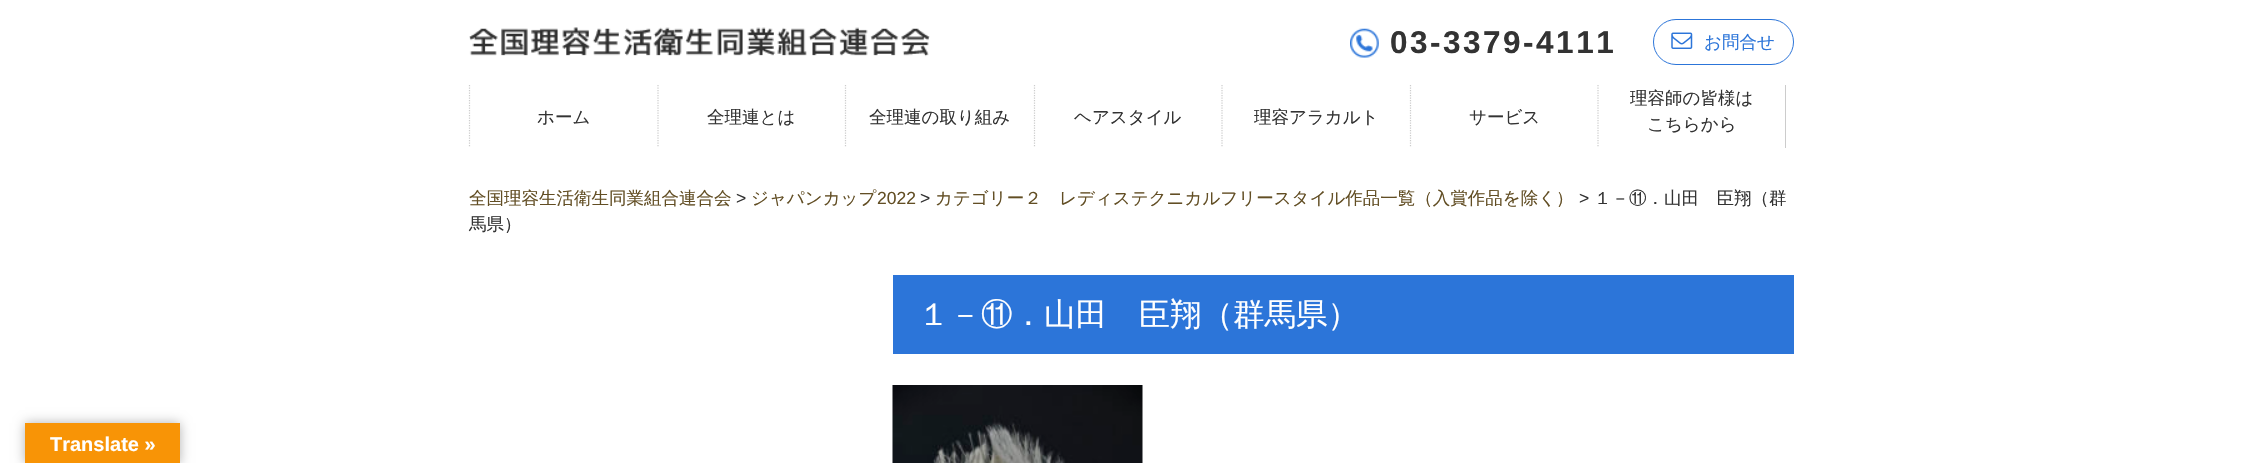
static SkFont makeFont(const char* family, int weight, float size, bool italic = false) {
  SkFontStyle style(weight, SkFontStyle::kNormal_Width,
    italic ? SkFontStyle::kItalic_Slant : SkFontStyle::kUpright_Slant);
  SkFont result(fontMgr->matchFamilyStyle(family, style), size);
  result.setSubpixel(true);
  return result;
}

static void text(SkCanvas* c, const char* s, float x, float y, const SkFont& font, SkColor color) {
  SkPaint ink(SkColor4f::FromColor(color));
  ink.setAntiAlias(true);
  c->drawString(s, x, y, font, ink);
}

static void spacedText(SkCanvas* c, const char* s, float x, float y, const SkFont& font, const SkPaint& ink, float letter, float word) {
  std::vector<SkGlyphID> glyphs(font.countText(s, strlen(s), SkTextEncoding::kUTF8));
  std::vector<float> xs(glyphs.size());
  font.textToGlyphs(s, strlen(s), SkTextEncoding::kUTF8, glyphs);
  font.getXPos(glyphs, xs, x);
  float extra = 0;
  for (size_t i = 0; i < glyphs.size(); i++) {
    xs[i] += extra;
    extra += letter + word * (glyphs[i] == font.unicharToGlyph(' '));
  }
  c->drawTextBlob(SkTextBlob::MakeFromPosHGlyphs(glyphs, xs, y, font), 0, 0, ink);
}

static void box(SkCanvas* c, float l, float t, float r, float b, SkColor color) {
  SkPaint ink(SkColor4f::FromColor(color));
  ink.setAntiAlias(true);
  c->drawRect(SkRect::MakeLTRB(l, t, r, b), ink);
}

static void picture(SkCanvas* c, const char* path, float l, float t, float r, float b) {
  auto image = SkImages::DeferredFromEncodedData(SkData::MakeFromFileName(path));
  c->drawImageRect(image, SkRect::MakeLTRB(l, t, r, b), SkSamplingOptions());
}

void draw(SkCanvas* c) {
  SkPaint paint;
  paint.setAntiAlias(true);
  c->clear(0xffffffff);
  picture(c, "img_01.png", 469, 27, 930, 57);
  picture(c, "img_02.png", 1350, 28, 1379, 58);
  SkFont face1 = makeFont("Liberation Sans", 700, 31.5f);
  paint.setColor(0xff333333);
  spacedText(c, "03-3379-4111", 1390, 53, face1, paint, 2.5f, 0);
  paint.setStyle(SkPaint::kStroke_Style);
  paint.setStrokeWidth(1);
  paint.setColor(0xff2c75d9);
  c->drawRoundRect(SkRect::MakeLTRB(1653.5f, 19.5f, 1793.5f, 64.5f), 22.5f, 22.5f, paint);
  picture(c, "img_03.png", 1671, 32, 1693, 49);
  SkFont face2 = makeFont("WenQuanYi Zen Hei", 500, 17.5f);
  text(c, "お問合せ", 1704, 48, face2, 0xff2c75d9);
  paint.setStrokeWidth(1.2f);
  paint.setColor(0xffcccccc);
  paint.setPathEffect(SkDashPathEffect::Make({{1.25f, 1.25f}}, 0));
  c->drawPath(SkPathBuilder().moveTo(469.5f, 85).lineTo(469.5f, 147.5f).detach(), paint);
  paint.setPathEffect(nullptr);
  text(c, "ホーム", 537, 123, face2, 0xff333333);
  paint.setPathEffect(SkDashPathEffect::Make({{1.25f, 1.25f}}, 0));
  c->drawPath(SkPathBuilder().moveTo(658, 85).lineTo(658, 147.5f).detach(), paint);
  paint.setPathEffect(nullptr);
  text(c, "全理連とは", 707, 123, face2, 0xff333333);
  paint.setPathEffect(SkDashPathEffect::Make({{1.25f, 1.25f}}, 0));
  c->drawPath(SkPathBuilder().moveTo(845.5f, 85).lineTo(845.5f, 147.5f).detach(), paint);
  paint.setPathEffect(nullptr);
  text(c, "全理連の取り組み", 869, 123, face2, 0xff333333);
  paint.setPathEffect(SkDashPathEffect::Make({{1.25f, 1.25f}}, 0));
  c->drawPath(SkPathBuilder().moveTo(1034.5f, 85).lineTo(1034.5f, 147.5f).detach(), paint);
  paint.setPathEffect(nullptr);
  text(c, "ヘアスタイル", 1074, 123, face2, 0xff333333);
  paint.setPathEffect(SkDashPathEffect::Make({{1.25f, 1.25f}}, 0));
  c->drawPath(SkPathBuilder().moveTo(1222, 85).lineTo(1222, 147.5f).detach(), paint);
  paint.setPathEffect(nullptr);
  text(c, "理容アラカルト", 1254, 123, face2, 0xff333333);
  paint.setPathEffect(SkDashPathEffect::Make({{1.25f, 1.25f}}, 0));
  c->drawPath(SkPathBuilder().moveTo(1410.5f, 85).lineTo(1410.5f, 147.5f).detach(), paint);
  paint.setPathEffect(nullptr);
  text(c, "サービス", 1469, 123, face2, 0xff333333);
  box(c, 1785, 85, 1786, 148, 0xffcccccc);
  paint.setPathEffect(SkDashPathEffect::Make({{1.25f, 1.25f}}, 0));
  c->drawPath(SkPathBuilder().moveTo(1598, 85).lineTo(1598, 147.5f).detach(), paint);
  paint.setPathEffect(nullptr);
  text(c, "理容師の皆様は", 1630, 104, face2, 0xff333333);
  text(c, "こちらから", 1647, 130, face2, 0xff333333);
  text(c, "全国理容生活衛生同業組合連合会", 469, 204, face2, 0xff624e24);
  SkFont face3 = makeFont("Liberation Sans", 400, 17.5f);
  text(c, ">", 736, 204, face3, 0xff333333);
  text(c, "ジャパンカップ", 751, 204, face2, 0xff624e24);
  text(c, "2022", 877, 204, face3, 0xff624e24);
  text(c, ">", 920, 204, face3, 0xff333333);
  text(c, "カテゴリー２　レディステクニカルフリースタイル作品一覧（入賞作品を除く）", 935, 204, face2, 0xff624e24);
  text(c, ">", 1579, 204, face3, 0xff333333);
  text(c, "１－⑪．山田　臣翔（群", 1594, 204, face2, 0xff333333);
  text(c, "馬県）", 469, 230, face2, 0xff333333);
  box(c, 893, 275, 1794, 354, 0xff2c75d9);
  SkFont face4 = makeFont("WenQuanYi Zen Hei", 500, 31.5f);
  text(c, "１－⑪．山田　臣翔（群馬県）", 918, 325, face4, 0xffffffff);
  picture(c, "img_04.png", 892, 385, 1143, 463);
  paint.setStyle(SkPaint::kFill_Style);
  paint.setColor(0x4d000000);
  paint.setMaskFilter(SkMaskFilter::MakeBlur(kNormal_SkBlurStyle, 5.5f));
  c->drawRect(SkRect::MakeLTRB(25, 423, 180, 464), paint);
  paint.setMaskFilter(nullptr);
  box(c, 25, 423, 180, 463, 0xfff89406);
  SkFont face5 = makeFont("Liberation Sans", 700, 20);
  text(c, "Translate »", 50, 451, face5, 0xffffffff);
}
